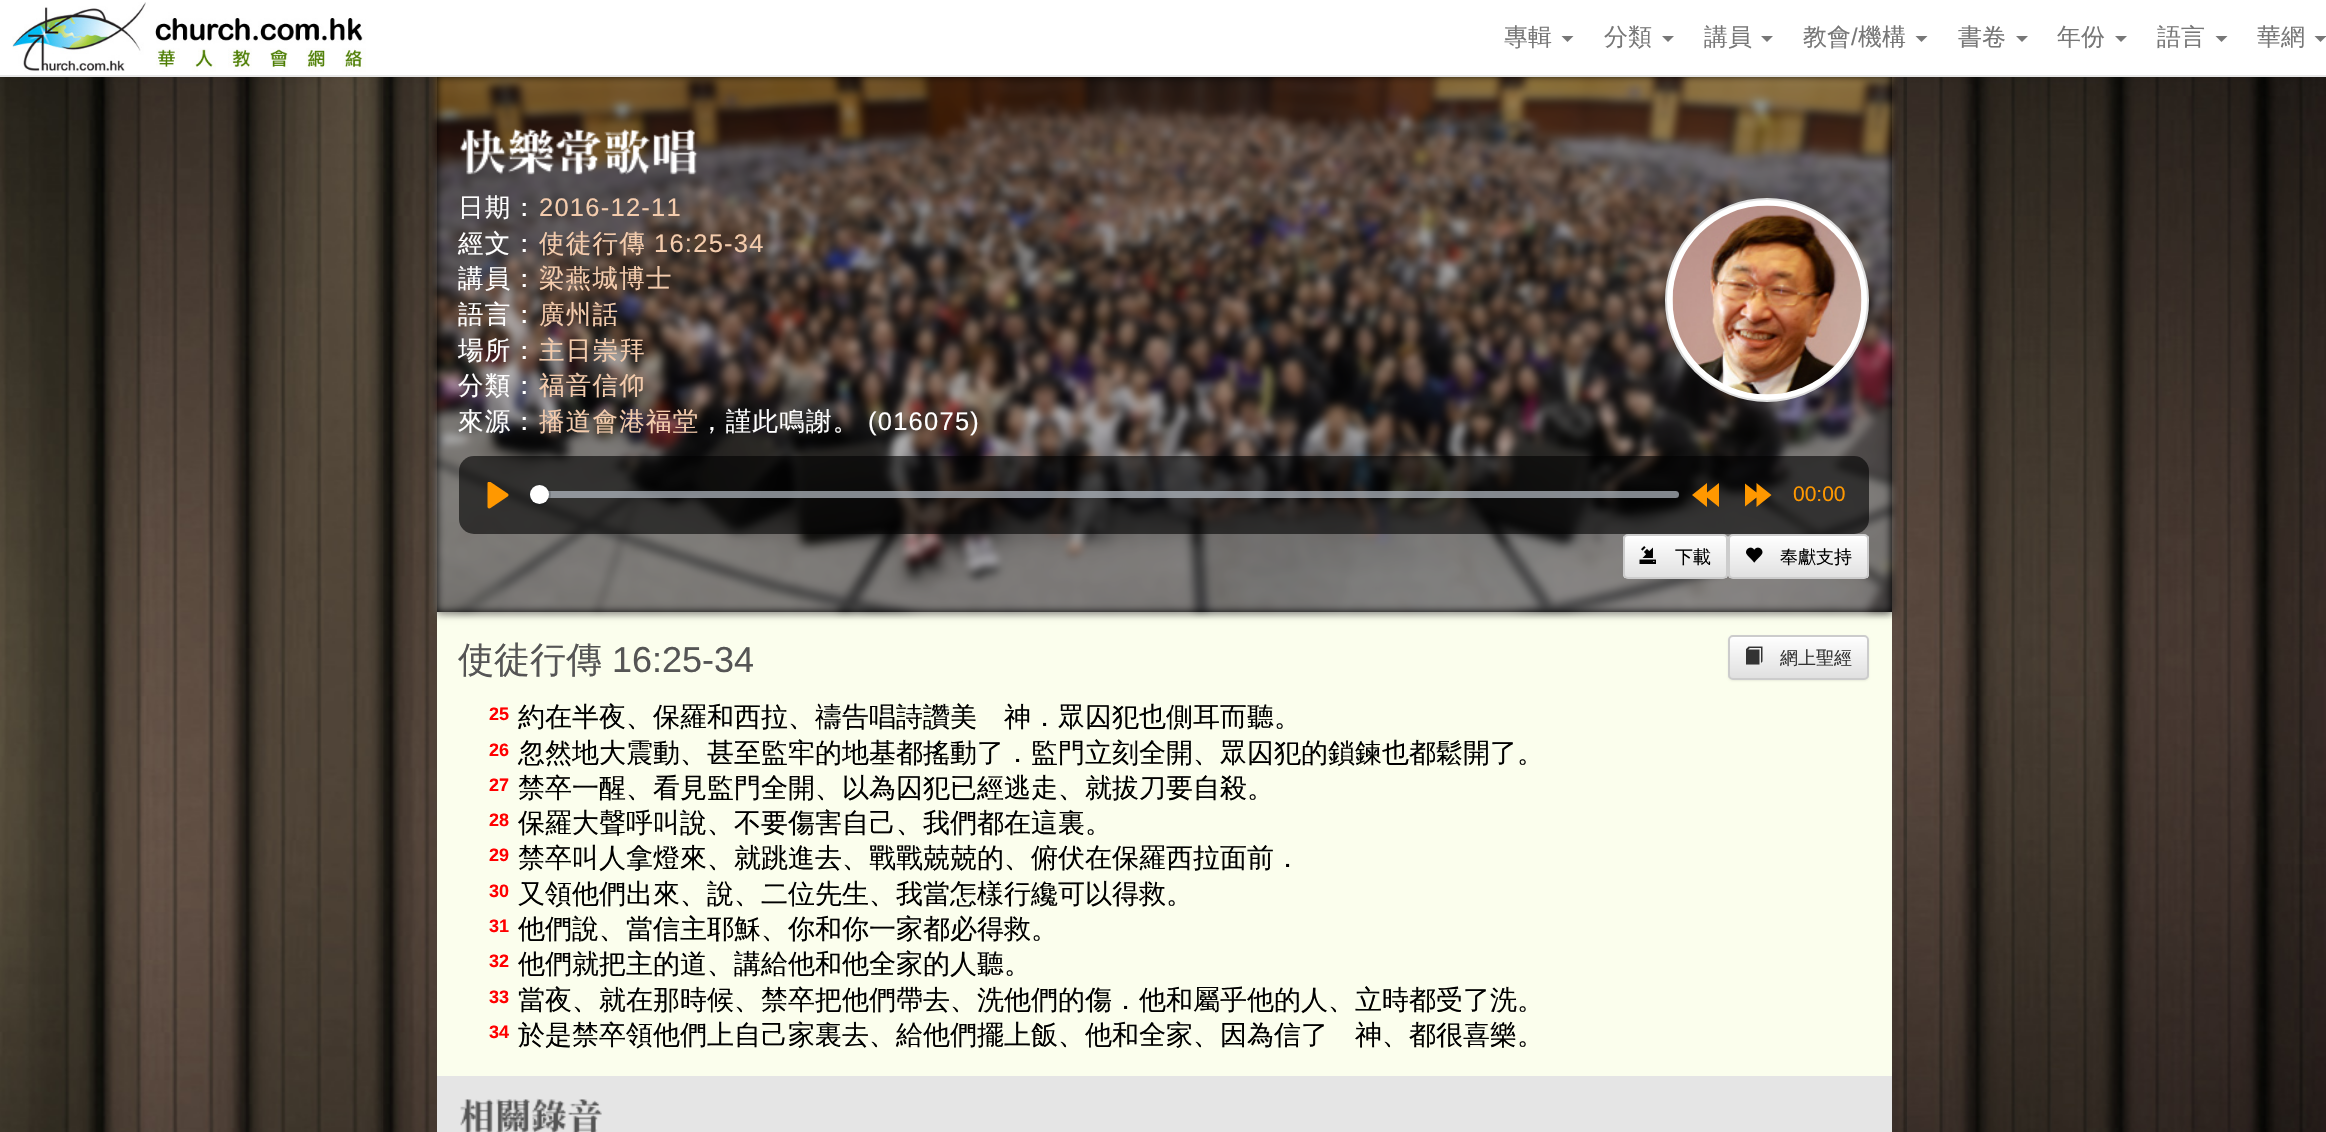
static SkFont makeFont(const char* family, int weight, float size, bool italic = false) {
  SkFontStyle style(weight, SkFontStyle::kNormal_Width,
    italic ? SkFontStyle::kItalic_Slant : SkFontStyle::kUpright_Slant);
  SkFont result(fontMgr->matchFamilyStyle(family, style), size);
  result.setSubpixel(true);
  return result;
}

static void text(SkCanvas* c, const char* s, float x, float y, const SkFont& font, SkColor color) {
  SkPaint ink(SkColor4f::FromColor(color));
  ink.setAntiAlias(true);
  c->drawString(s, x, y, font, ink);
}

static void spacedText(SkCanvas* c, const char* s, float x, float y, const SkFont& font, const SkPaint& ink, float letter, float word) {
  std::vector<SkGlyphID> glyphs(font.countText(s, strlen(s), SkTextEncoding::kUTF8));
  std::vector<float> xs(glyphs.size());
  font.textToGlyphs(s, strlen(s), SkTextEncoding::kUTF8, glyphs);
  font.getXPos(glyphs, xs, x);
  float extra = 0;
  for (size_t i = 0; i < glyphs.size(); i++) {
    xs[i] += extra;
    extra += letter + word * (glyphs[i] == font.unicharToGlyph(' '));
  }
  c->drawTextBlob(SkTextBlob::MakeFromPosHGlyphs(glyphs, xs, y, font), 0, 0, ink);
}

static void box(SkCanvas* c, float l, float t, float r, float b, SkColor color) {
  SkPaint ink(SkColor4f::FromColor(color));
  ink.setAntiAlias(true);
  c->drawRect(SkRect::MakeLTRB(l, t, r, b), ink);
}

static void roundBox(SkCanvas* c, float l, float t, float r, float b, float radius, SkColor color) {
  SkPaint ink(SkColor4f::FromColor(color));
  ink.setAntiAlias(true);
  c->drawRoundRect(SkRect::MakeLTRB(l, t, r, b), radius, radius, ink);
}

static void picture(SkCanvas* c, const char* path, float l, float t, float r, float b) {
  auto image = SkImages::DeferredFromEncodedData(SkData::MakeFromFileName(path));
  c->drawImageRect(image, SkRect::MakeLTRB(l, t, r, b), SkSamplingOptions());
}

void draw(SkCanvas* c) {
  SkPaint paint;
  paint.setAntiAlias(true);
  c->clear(0xffffffff);
  picture(c, "img_01.png", 0, 77, 2326, 1132);
  box(c, 437, 77, 1892, 612, 0xff000000);
  box(c, 437, 612, 1892, 1076, 0xfffbfeed);
  paint.setColor(0xb3000000);
  paint.setMaskFilter(SkMaskFilter::MakeBlur(kNormal_SkBlurStyle, 4.5f));
  c->drawRect(SkRect::MakeLTRB(437, 75, 1892, 612), paint);
  paint.setMaskFilter(nullptr);
  picture(c, "img_03.png", 429, 77, 1899, 619);
  paint.setColor(0x12000000);
  paint.setMaskFilter(SkMaskFilter::MakeBlur(kNormal_SkBlurStyle, 4));
  c->drawRect(SkRect::MakeLTRB(0, 2, 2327, 78), paint);
  paint.setMaskFilter(nullptr);
  box(c, 0, 75, 2326, 77, 0xffe7e7e7);
  box(c, 0, 0, 2326, 75, 0xffffffff);
  picture(c, "img_02.png", 12, 2, 366, 72);
  SkFont face1 = makeFont("WenQuanYi Zen Hei", 500, 24);
  text(c, "專輯", 1504, 45, face1, 0xff777777);
  paint.setColor(0xff777777);
  c->drawPath(SkPathBuilder().moveTo(1561.5f, 36).lineTo(1573.5f, 36).lineTo(1567.5f, 42).close().detach(), paint);
  text(c, "分類", 1604, 45, face1, 0xff777777);
  c->drawPath(SkPathBuilder().moveTo(1662, 36).lineTo(1674, 36).lineTo(1668, 42).close().detach(), paint);
  text(c, "講員", 1704, 45, face1, 0xff777777);
  c->drawPath(SkPathBuilder().moveTo(1761, 36).lineTo(1773, 36).lineTo(1767, 42).close().detach(), paint);
  text(c, "教會", 1803, 45, face1, 0xff777777);
  SkFont face2 = makeFont("Liberation Sans", 400, 24);
  text(c, "/", 1851, 45, face2, 0xff777777);
  text(c, "機構", 1858, 45, face1, 0xff777777);
  c->drawPath(SkPathBuilder().moveTo(1915.5f, 36).lineTo(1927.5f, 36).lineTo(1921.5f, 42).close().detach(), paint);
  text(c, "書卷", 1958, 45, face1, 0xff777777);
  c->drawPath(SkPathBuilder().moveTo(2016, 36).lineTo(2028, 36).lineTo(2022, 42).close().detach(), paint);
  text(c, "年份", 2057, 45, face1, 0xff777777);
  c->drawPath(SkPathBuilder().moveTo(2115, 36).lineTo(2127, 36).lineTo(2121, 42).close().detach(), paint);
  text(c, "語言", 2157, 45, face1, 0xff777777);
  c->drawPath(SkPathBuilder().moveTo(2215.5f, 36).lineTo(2227.5f, 36).lineTo(2221.5f, 42).close().detach(), paint);
  text(c, "華網", 2257, 45, face1, 0xff777777);
  c->drawPath(SkPathBuilder().moveTo(2314.5f, 36).lineTo(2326.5f, 36).lineTo(2320.5f, 42).close().detach(), paint);
  picture(c, "img_04.png", 460, 128, 506, 175);
  picture(c, "img_05.png", 508, 128, 554, 175);
  picture(c, "img_06.png", 556, 128, 602, 175);
  picture(c, "img_07.png", 604, 128, 650, 175);
  picture(c, "img_08.png", 653, 128, 698, 175);
  SkFont face3 = makeFont("WenQuanYi Zen Hei", 500, 25.5f);
  paint.setColor(0xffffffff);
  spacedText(c, "日期：", 458, 216, face3, paint, 1.25f, 0);
  SkFont face4 = makeFont("Liberation Sans", 400, 25.5f);
  paint.setColor(0xfff4ccad);
  spacedText(c, "2016-12-11", 539, 216, face4, paint, 1.25f, 0);
  paint.setColor(0xffffffff);
  spacedText(c, "經文：", 458, 252, face3, paint, 1.25f, 0);
  paint.setColor(0xfff4ccad);
  spacedText(c, "使徒行傳", 539, 252, face3, paint, 1.25f, 0);
  spacedText(c, "16:25-34", 654, 252, face4, paint, 1.25f, 0);
  paint.setColor(0xffffffff);
  spacedText(c, "講員：", 458, 287, face3, paint, 1.25f, 0);
  paint.setColor(0xfff4ccad);
  spacedText(c, "梁燕城博士", 539, 287, face3, paint, 1.25f, 0);
  paint.setColor(0xffffffff);
  spacedText(c, "語言：", 458, 323, face3, paint, 1.25f, 0);
  paint.setColor(0xfff4ccad);
  spacedText(c, "廣州話", 539, 323, face3, paint, 1.25f, 0);
  paint.setColor(0xffffffff);
  spacedText(c, "場所：", 458, 359, face3, paint, 1.25f, 0);
  paint.setColor(0xfff4ccad);
  spacedText(c, "主日崇拜", 539, 359, face3, paint, 1.25f, 0);
  paint.setColor(0xffffffff);
  spacedText(c, "分類：", 458, 394, face3, paint, 1.25f, 0);
  paint.setColor(0xfff4ccad);
  spacedText(c, "福音信仰", 539, 394, face3, paint, 1.25f, 0);
  paint.setColor(0xffffffff);
  spacedText(c, "來源：", 458, 430, face3, paint, 1.25f, 0);
  paint.setColor(0xfff4ccad);
  spacedText(c, "播道會港福堂", 539, 430, face3, paint, 1.25f, 0);
  paint.setColor(0xffffffff);
  spacedText(c, "，謹此鳴謝。", 699, 430, face3, paint, 1.25f, 0);
  spacedText(c, "(016075)", 868, 430, face4, paint, 1.25f, 0);
  paint.setColor(0x12000000);
  paint.setMaskFilter(SkMaskFilter::MakeBlur(kNormal_SkBlurStyle, 1.5f));
  c->drawRoundRect(SkRect::MakeLTRB(1665, 200, 1869, 404), 102, 102, paint);
  paint.setMaskFilter(nullptr);
  paint.setColor(0xffffffff);
  c->drawCircle(1767, 300, 101, paint);
  paint.setStyle(SkPaint::kStroke_Style);
  paint.setStrokeWidth(2);
  paint.setColor(0xffdddddd);
  c->drawCircle(1767, 300, 101, paint);
  picture(c, "img_09.png", 1672, 205, 1862, 395);
  roundBox(c, 459, 456, 1869, 534, 15, 0x99000000);
  picture(c, "img_10.png", 487, 482, 509, 509);
  roundBox(c, 530, 491, 1679, 498, 3.5f, 0xa8c1c9d1);
  paint.setColor(0x3323292f);
  c->drawCircle(539.5f, 494.5f, 10.5f, paint);
  paint.setStyle(SkPaint::kFill_Style);
  paint.setColor(0x26000000);
  paint.setMaskFilter(SkMaskFilter::MakeBlur(kNormal_SkBlurStyle, 1));
  c->drawRoundRect(SkRect::MakeLTRB(530, 486, 549, 506), 9.5f, 9.5f, paint);
  paint.setMaskFilter(nullptr);
  paint.setColor(0xffffffff);
  c->drawCircle(539.5f, 494.5f, 9.5f, paint);
  paint.setColor(0xffff9800);
  c->drawPath(SkPathBuilder().moveTo(1707, 483).lineTo(1692, 495).lineTo(1707, 507).lineTo(1707, 497.5f).lineTo(1719, 507).lineTo(1719, 483).lineTo(1707, 492.5f).close().detach(), paint);
  c->save();
  c->clipRect(SkRect::MakeLTRB(1745, 482, 1772, 509));
  c->drawPath(SkPathBuilder().moveTo(1756.5f, 492.5f).lineTo(1744.5f, 483).lineTo(1744.5f, 507).lineTo(1756.5f, 497.5f).lineTo(1756.5f, 507).lineTo(1771.5f, 495).lineTo(1756.5f, 483).close().detach(), paint);
  c->restore();
  SkFont face5 = makeFont("Liberation Sans", 400, 21);
  text(c, "00:00", 1793, 501, face5, 0xffff9800);
  c->save();
  c->clipPath(SkPathBuilder().moveTo(1628, 534).lineTo(1723, 534).cubicTo(1726, 534, 1728, 536, 1728, 539).lineTo(1728, 574).cubicTo(1728, 577, 1726, 579, 1723, 579).lineTo(1628, 579).cubicTo(1625, 579, 1623, 577, 1623, 574).lineTo(1623, 539).cubicTo(1623, 536, 1625, 534, 1628, 534).close().detach(), true);
  {
    const SkColor colors[] = {0xffffffff, 0xffe0e0e0};
    const float stops[] = {0, 1};
    const SkPoint ends[] = {{1676, 536}, {1676, 578}};
    paint.setShader(SkGradientShader::MakeLinear(ends, colors, stops, 2, SkTileMode::kClamp));
    paint.setAlpha(255);
  }
  c->drawRect(SkRect::MakeLTRB(1623, 536, 1728, 578), paint);
  c->restore();
  paint.setShader(nullptr);
  paint.setColor(0x26ffffff);
  c->drawPath(SkPathBuilder().moveTo(1628, 537).lineTo(1708, 537).cubicTo(1729, 537, 1726, 533, 1726, 552).lineTo(1726, 577).cubicTo(1727, 577, 1727, 576, 1727, 575).lineTo(1727, 539).cubicTo(1727, 537, 1726, 536, 1724, 536).lineTo(1628, 536).cubicTo(1627, 536, 1626, 537, 1625, 538).close().detach(), paint);
  paint.setStyle(SkPaint::kStroke_Style);
  paint.setColor(0xffcccccc);
  c->drawRoundRect(SkRect::MakeLTRB(1624, 535, 1727, 578), 4, 4, paint);
  picture(c, "img_11.png", 1639, 546, 1656, 564);
  SkFont face6 = makeFont("WenQuanYi Zen Hei", 500, 18);
  text(c, "下載", 1675, 563, face6, 0xff000000);
  c->save();
  c->clipPath(SkPathBuilder().moveTo(1733, 534).lineTo(1864, 534).cubicTo(1867, 534, 1869, 536, 1869, 539).lineTo(1869, 574).cubicTo(1869, 577, 1867, 579, 1864, 579).lineTo(1733, 579).cubicTo(1730, 579, 1728, 577, 1728, 574).lineTo(1728, 539).cubicTo(1728, 536, 1730, 534, 1733, 534).close().detach(), true);
  paint.setStyle(SkPaint::kFill_Style);
  {
    const SkColor colors[] = {0xffffffff, 0xffe0e0e0};
    const float stops[] = {0, 1};
    const SkPoint ends[] = {{1799, 536}, {1799, 578}};
    paint.setShader(SkGradientShader::MakeLinear(ends, colors, stops, 2, SkTileMode::kClamp));
    paint.setAlpha(255);
  }
  c->drawRect(SkRect::MakeLTRB(1728, 536, 1869, 578), paint);
  c->restore();
  paint.setStyle(SkPaint::kStroke_Style);
  paint.setShader(nullptr);
  paint.setColor(0xffcccccc);
  c->drawRoundRect(SkRect::MakeLTRB(1729, 535, 1868, 578), 4, 4, paint);
  picture(c, "img_12.png", 1746, 547, 1763, 563);
  text(c, "奉獻支持", 1780, 563, face6, 0xff000000);
  SkFont face7 = makeFont("WenQuanYi Zen Hei", 500, 36);
  text(c, "使徒行傳", 458, 672, face7, 0xff555555);
  SkFont face8 = makeFont("Liberation Sans", 400, 36);
  text(c, "16:25-34", 612, 672, face8, 0xff555555);
  SkFont face9 = makeFont("Liberation Sans", 700, 18);
  text(c, "25", 489, 720, face9, 0xffff0000);
  SkFont face10 = makeFont("WenQuanYi Zen Hei", 500, 27);
  text(c, "約在半夜、保羅和西拉、禱告唱詩讚美　神．眾囚犯也側耳而聽。", 518, 726, face10, 0xff000000);
  text(c, "26", 489, 756, face9, 0xffff0000);
  text(c, "忽然地大震動、甚至監牢的地基都搖動了．監門立刻全開、眾囚犯的鎖鍊也都鬆開了。", 518, 762, face10, 0xff000000);
  text(c, "27", 489, 791, face9, 0xffff0000);
  text(c, "禁卒一醒、看見監門全開、以為囚犯已經逃走、就拔刀要自殺。", 518, 797, face10, 0xff000000);
  text(c, "28", 489, 826, face9, 0xffff0000);
  text(c, "保羅大聲呼叫說、不要傷害自己、我們都在這裏。", 518, 832, face10, 0xff000000);
  text(c, "29", 489, 861, face9, 0xffff0000);
  text(c, "禁卒叫人拿燈來、就跳進去、戰戰兢兢的、俯伏在保羅西拉面前．", 518, 867, face10, 0xff000000);
  text(c, "30", 489, 897, face9, 0xffff0000);
  text(c, "又領他們出來、說、二位先生、我當怎樣行纔可以得救。", 518, 903, face10, 0xff000000);
  text(c, "31", 489, 932, face9, 0xffff0000);
  text(c, "他們說、當信主耶穌、你和你一家都必得救。", 518, 938, face10, 0xff000000);
  text(c, "32", 489, 967, face9, 0xffff0000);
  text(c, "他們就把主的道、講給他和他全家的人聽。", 518, 973, face10, 0xff000000);
  text(c, "33", 489, 1003, face9, 0xffff0000);
  text(c, "當夜、就在那時候、禁卒把他們帶去、洗他們的傷．他和屬乎他的人、立時都受了洗。", 518, 1009, face10, 0xff000000);
  text(c, "34", 489, 1038, face9, 0xffff0000);
  text(c, "於是禁卒領他們上自己家裏去、給他們擺上飯、他和全家、因為信了　神、都很喜樂。", 518, 1044, face10, 0xff000000);
  paint.setStyle(SkPaint::kFill_Style);
  paint.setColor(0x12000000);
  paint.setMaskFilter(SkMaskFilter::MakeBlur(kNormal_SkBlurStyle, 1));
  c->drawRoundRect(SkRect::MakeLTRB(1728, 636, 1869, 681), 5, 5, paint);
  paint.setMaskFilter(nullptr);
  c->save();
  c->clipPath(SkPathBuilder().moveTo(1733, 635).lineTo(1864, 635).cubicTo(1867, 635, 1869, 637, 1869, 640).lineTo(1869, 675).cubicTo(1869, 678, 1867, 680, 1864, 680).lineTo(1733, 680).cubicTo(1730, 680, 1728, 678, 1728, 675).lineTo(1728, 640).cubicTo(1728, 637, 1730, 635, 1733, 635).close().detach(), true);
  {
    const SkColor colors[] = {0xffffffff, 0xffe0e0e0};
    const float stops[] = {0, 1};
    const SkPoint ends[] = {{1799, 636}, {1799, 678}};
    paint.setShader(SkGradientShader::MakeLinear(ends, colors, stops, 2, SkTileMode::kClamp));
    paint.setAlpha(255);
  }
  c->drawRect(SkRect::MakeLTRB(1728, 636, 1869, 678), paint);
  c->restore();
  paint.setShader(nullptr);
  paint.setColor(0xffffffff);
  c->drawPath(SkPathBuilder().moveTo(1732, 638).lineTo(1864, 638).cubicTo(1866, 638, 1868, 639, 1868, 640).cubicTo(1868, 638, 1868, 636, 1866, 636).lineTo(1732, 636).cubicTo(1730, 636, 1730, 638, 1730, 640).cubicTo(1730, 639, 1731, 638, 1732, 638).close().detach(), paint);
  paint.setStyle(SkPaint::kStroke_Style);
  paint.setColor(0xffcccccc);
  c->drawRoundRect(SkRect::MakeLTRB(1729, 636, 1868, 679), 4, 4, paint);
  picture(c, "img_13.png", 1746, 646, 1763, 665);
  text(c, "網上聖經", 1780, 664, face6, 0xff333333);
  box(c, 437, 1076, 1892, 1132, 0xffe5e5e5);
  picture(c, "img_14.png", 460, 1099, 494, 1132);
  picture(c, "img_15.png", 496, 1099, 530, 1132);
  picture(c, "img_16.png", 531, 1098, 566, 1132);
  picture(c, "img_17.png", 568, 1099, 602, 1132);
}
